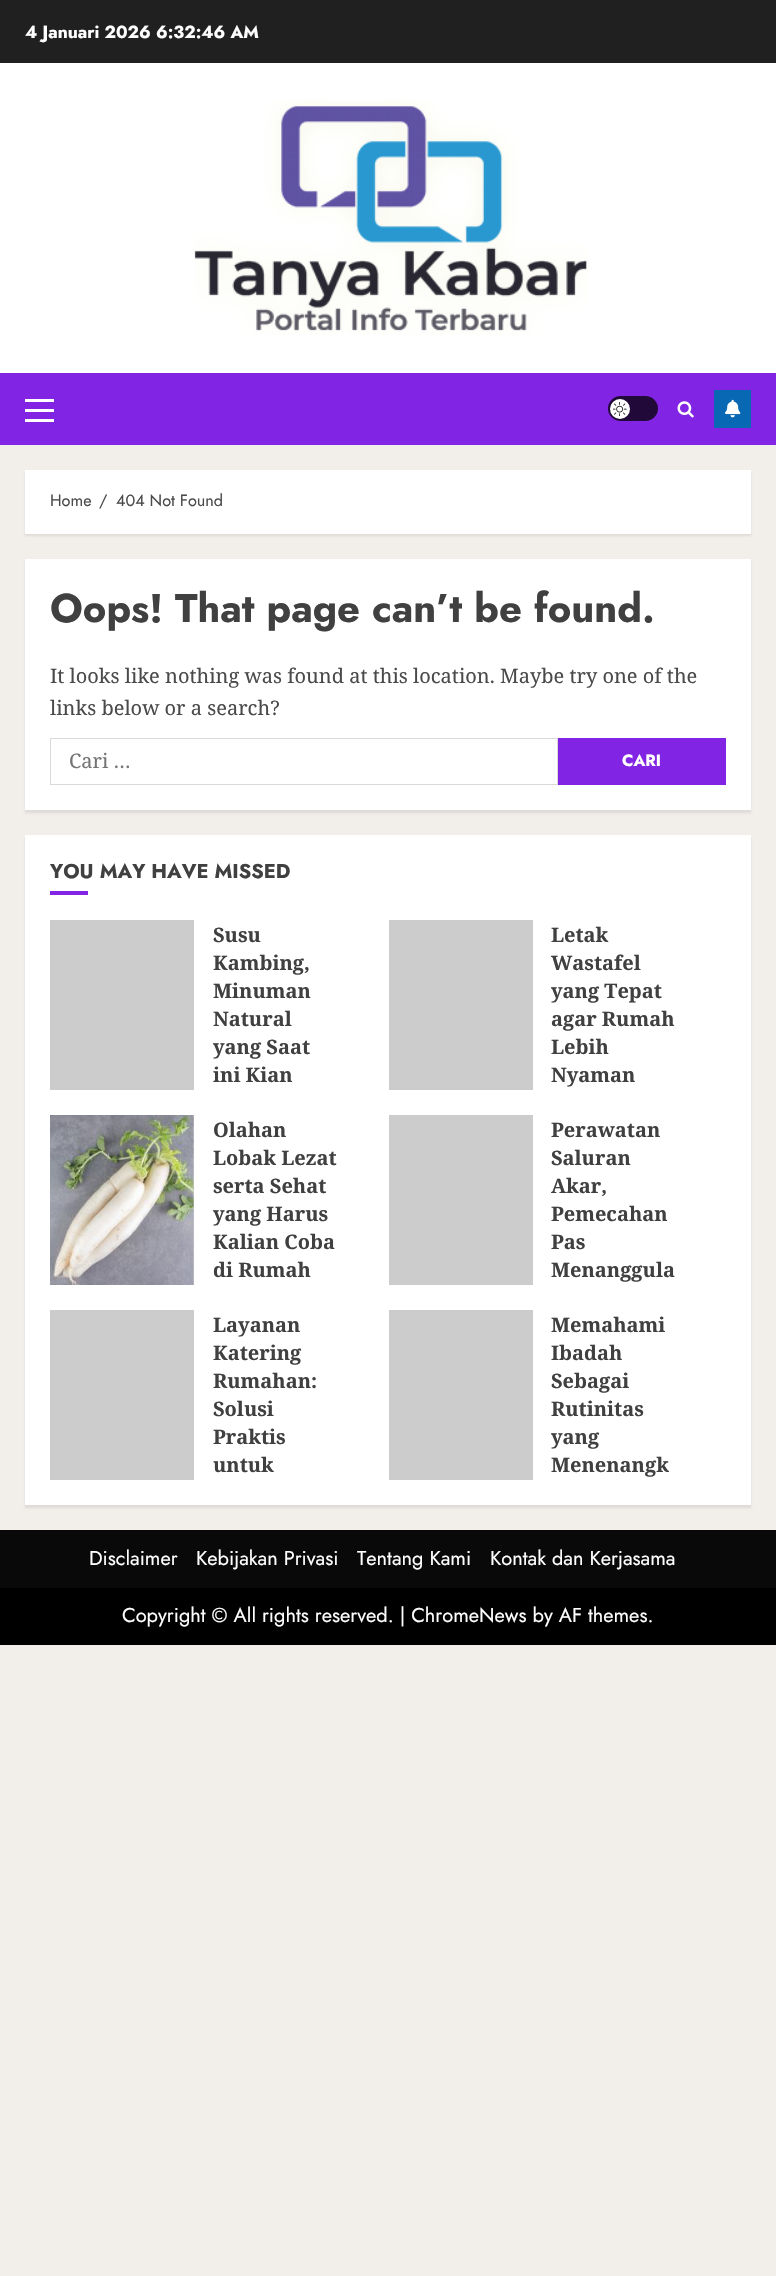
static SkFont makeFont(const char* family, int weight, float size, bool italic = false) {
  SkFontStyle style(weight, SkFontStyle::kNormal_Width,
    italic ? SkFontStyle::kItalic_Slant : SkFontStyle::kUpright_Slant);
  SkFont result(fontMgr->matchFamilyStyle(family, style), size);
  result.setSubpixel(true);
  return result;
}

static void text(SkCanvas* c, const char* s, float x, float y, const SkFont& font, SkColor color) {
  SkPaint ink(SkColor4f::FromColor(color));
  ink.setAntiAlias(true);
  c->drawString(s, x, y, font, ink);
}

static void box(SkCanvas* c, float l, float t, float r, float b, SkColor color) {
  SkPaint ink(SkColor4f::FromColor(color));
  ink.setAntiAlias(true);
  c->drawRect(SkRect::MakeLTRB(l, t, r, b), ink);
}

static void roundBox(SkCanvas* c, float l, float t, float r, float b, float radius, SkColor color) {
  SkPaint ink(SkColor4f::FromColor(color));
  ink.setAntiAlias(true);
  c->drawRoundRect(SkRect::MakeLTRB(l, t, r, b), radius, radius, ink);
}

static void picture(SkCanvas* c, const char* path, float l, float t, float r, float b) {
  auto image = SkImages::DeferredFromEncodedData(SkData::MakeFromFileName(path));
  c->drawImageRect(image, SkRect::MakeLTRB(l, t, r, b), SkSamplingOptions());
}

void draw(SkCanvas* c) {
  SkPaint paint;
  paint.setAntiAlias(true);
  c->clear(0xfff2eeea);
  box(c, 0, 0, 776, 63, 0xff202020);
  SkFont face1 = makeFont("Jost", 700, 17.5f);
  text(c, "4 Januari 2026 6:32:46 AM", 25, 38, face1, 0xffffffff);
  box(c, 0, 63, 776, 373, 0xffffffff);
  picture(c, "img_01.png", 194, 100, 588, 335);
  box(c, 0, 373, 776, 445, 0xff8224e3);
  box(c, 25, 409, 54, 412, 0xffffffff);
  box(c, 25, 399, 54, 402, 0xffffffff);
  box(c, 25, 419, 54, 422, 0xffffffff);
  roundBox(c, 608, 396, 658, 421, 12.5f, 0xff210939);
  paint.setColor(0xffffffff);
  c->drawCircle(620, 409, 10, paint);
  picture(c, "img_02.png", 613, 402, 627, 416);
  picture(c, "img_03.png", 677, 401, 694, 418);
  box(c, 714, 390, 751, 428, 0xff0868b3);
  picture(c, "img_04.png", 725, 399, 741, 418);
  paint.setColor(0x14000000);
  paint.setMaskFilter(SkMaskFilter::MakeBlur(kNormal_SkBlurStyle, 1));
  c->drawRect(SkRect::MakeLTRB(25, 473, 751, 536), paint);
  paint.setMaskFilter(nullptr);
  box(c, 25, 470, 751, 534, 0xffffffff);
  SkFont face2 = makeFont("Jost", 400, 16.25f);
  text(c, "Home", 50, 506, face2, 0xff4a4a4a);
  text(c, "/", 99, 506, face2, 0xff4a4a4a);
  text(c, "404 Not Found", 116, 506, face2, 0xff4a4a4a);
  paint.setMaskFilter(SkMaskFilter::MakeBlur(kNormal_SkBlurStyle, 1));
  c->drawRect(SkRect::MakeLTRB(25, 561, 751, 813), paint);
  paint.setMaskFilter(nullptr);
  box(c, 25, 559, 751, 810, 0xffffffff);
  SkFont face3 = makeFont("Jost", 700, 40);
  text(c, "Oops! That page can’t be found.", 50, 622, face3, 0xff404040);
  SkFont face4 = makeFont("Noto Serif", 400, 20);
  text(c, "It looks like nothing was found at this location. Maybe try one of the", 50, 683, face4, 0xff4a4a4a);
  text(c, "links below or a search?", 50, 715, face4, 0xff4a4a4a);
  paint.setStyle(SkPaint::kStroke_Style);
  paint.setStrokeWidth(1);
  paint.setColor(0xffd9d9d9);
  c->drawRect(SkRect::MakeLTRB(50.5f, 738.5f, 557.5f, 784.5f), paint);
  text(c, "Cari …", 69, 768, face4, 0xff757575);
  box(c, 558, 738, 726, 785, 0xff8224e3);
  SkFont face5 = makeFont("Jost", 700, 16.25f);
  text(c, "CARI", 622, 766, face5, 0xffffffff);
  paint.setStyle(SkPaint::kFill_Style);
  paint.setColor(0x14000000);
  paint.setMaskFilter(SkMaskFilter::MakeBlur(kNormal_SkBlurStyle, 1));
  c->drawRect(SkRect::MakeLTRB(25, 838, 751, 1508), paint);
  paint.setMaskFilter(nullptr);
  box(c, 25, 835, 751, 1505, 0xffffffff);
  SkFont face6 = makeFont("Jost", 700, 20);
  text(c, "YOU MAY HAVE MISSED", 50, 878, face6, 0xff404040);
  box(c, 50, 891, 88, 895, 0xff8224e3);
  box(c, 50, 920, 194, 1090, 0xffcccccc);
  SkFont face7 = makeFont("Noto Serif", 700, 20);
  text(c, "Susu", 213, 942, face7, 0xff404040);
  text(c, "Kambing,", 213, 970, face7, 0xff404040);
  text(c, "Minuman", 213, 998, face7, 0xff404040);
  text(c, "Natural", 213, 1026, face7, 0xff404040);
  text(c, "yang Saat", 213, 1054, face7, 0xff404040);
  text(c, "ini Kian", 213, 1082, face7, 0xff404040);
  box(c, 389, 920, 533, 1090, 0xffcccccc);
  text(c, "Letak", 551, 942, face7, 0xff404040);
  text(c, "Wastafel", 551, 970, face7, 0xff404040);
  text(c, "yang Tepat", 551, 998, face7, 0xff404040);
  text(c, "agar Rumah", 551, 1026, face7, 0xff404040);
  text(c, "Lebih", 551, 1054, face7, 0xff404040);
  text(c, "Nyaman", 551, 1082, face7, 0xff404040);
  box(c, 193, 1115, 194, 1285, 0xffcccccc);
  picture(c, "img_05.png", 50, 1115, 194, 1285);
  text(c, "Olahan", 213, 1137, face7, 0xff404040);
  text(c, "Lobak Lezat", 213, 1165, face7, 0xff404040);
  text(c, "serta Sehat", 213, 1193, face7, 0xff404040);
  text(c, "yang Harus", 213, 1221, face7, 0xff404040);
  text(c, "Kalian Coba", 213, 1249, face7, 0xff404040);
  text(c, "di Rumah", 213, 1277, face7, 0xff404040);
  box(c, 389, 1115, 533, 1285, 0xffcccccc);
  text(c, "Perawatan", 551, 1137, face7, 0xff404040);
  text(c, "Saluran", 551, 1165, face7, 0xff404040);
  text(c, "Akar,", 551, 1193, face7, 0xff404040);
  text(c, "Pemecahan", 551, 1221, face7, 0xff404040);
  text(c, "Pas", 551, 1249, face7, 0xff404040);
  text(c, "Menanggula", 551, 1277, face7, 0xff404040);
  box(c, 50, 1310, 194, 1480, 0xffcccccc);
  text(c, "Layanan", 213, 1332, face7, 0xff404040);
  text(c, "Katering", 213, 1360, face7, 0xff404040);
  text(c, "Rumahan:", 213, 1388, face7, 0xff404040);
  text(c, "Solusi", 213, 1416, face7, 0xff404040);
  text(c, "Praktis", 213, 1444, face7, 0xff404040);
  text(c, "untuk", 213, 1472, face7, 0xff404040);
  box(c, 389, 1310, 533, 1480, 0xffcccccc);
  text(c, "Memahami", 551, 1332, face7, 0xff404040);
  text(c, "Ibadah", 551, 1360, face7, 0xff404040);
  text(c, "Sebagai", 551, 1388, face7, 0xff404040);
  text(c, "Rutinitas", 551, 1416, face7, 0xff404040);
  text(c, "yang", 551, 1444, face7, 0xff404040);
  text(c, "Menenangk", 551, 1472, face7, 0xff404040);
  box(c, 0, 1530, 776, 1588, 0xff090909);
  SkFont face8 = makeFont("Jost", 400, 20);
  text(c, "Disclaimer", 89, 1565, face8, 0xffffffff);
  text(c, "Kebijakan Privasi", 196, 1565, face8, 0xffffffff);
  text(c, "Tentang Kami", 357, 1565, face8, 0xffffffff);
  text(c, "Kontak dan Kerjasama", 490, 1565, face8, 0xffffffff);
  box(c, 0, 1588, 776, 1645, 0xff000000);
  text(c, "Copyright © All rights reserved. | ChromeNews by AF themes.", 122, 1622, face8, 0xffffffff);
}
